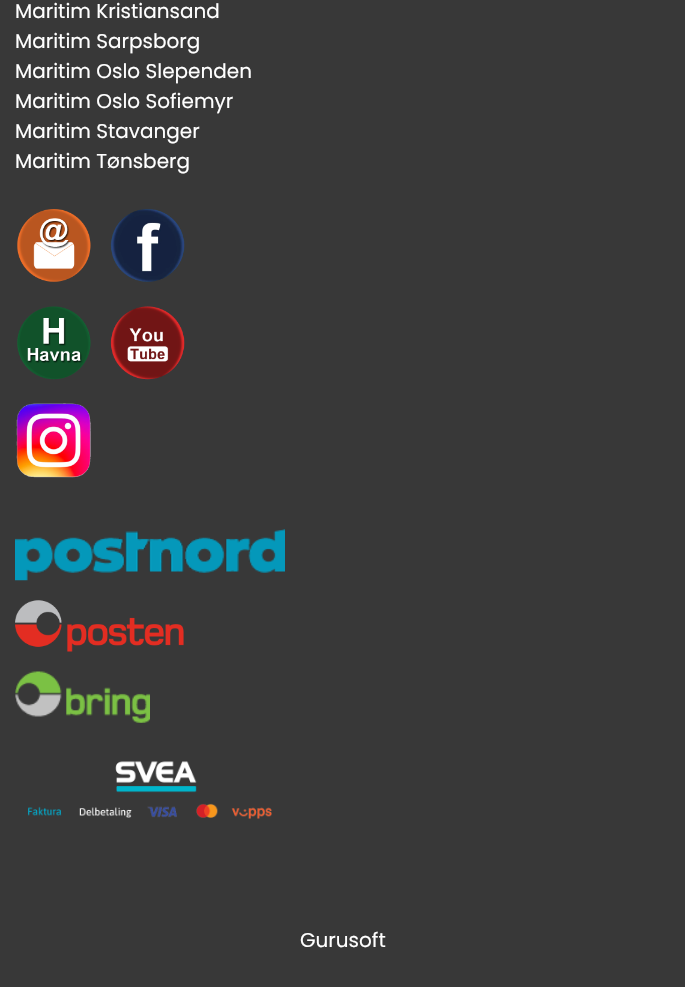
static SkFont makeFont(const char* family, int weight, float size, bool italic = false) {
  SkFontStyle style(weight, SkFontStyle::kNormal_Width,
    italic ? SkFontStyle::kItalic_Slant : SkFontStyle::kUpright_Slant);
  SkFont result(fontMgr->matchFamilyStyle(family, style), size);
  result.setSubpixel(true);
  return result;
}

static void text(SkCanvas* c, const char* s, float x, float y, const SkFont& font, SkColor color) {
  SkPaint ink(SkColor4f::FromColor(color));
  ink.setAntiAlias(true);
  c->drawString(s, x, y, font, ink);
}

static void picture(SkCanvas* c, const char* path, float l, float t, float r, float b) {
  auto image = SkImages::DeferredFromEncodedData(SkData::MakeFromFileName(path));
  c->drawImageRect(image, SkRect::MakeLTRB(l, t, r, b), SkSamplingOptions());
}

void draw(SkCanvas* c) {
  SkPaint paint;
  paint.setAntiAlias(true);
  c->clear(0xff383838);
  SkFont face1 = makeFont("Poppins", 400, 20);
  text(c, "Maritim Kristiansand", 15, 18, face1, 0xffffffff);
  text(c, "Maritim Sarpsborg", 15, 48, face1, 0xffffffff);
  text(c, "Maritim Oslo Slependen", 15, 78, face1, 0xffffffff);
  text(c, "Maritim Oslo Sofiemyr", 15, 108, face1, 0xffffffff);
  text(c, "Maritim Stavanger", 15, 138, face1, 0xffffffff);
  text(c, "Maritim Tønsberg", 15, 168, face1, 0xffffffff);
  picture(c, "img_01.png", 17, 209, 91, 282);
  picture(c, "img_02.png", 110, 209, 185, 282);
  picture(c, "img_03.png", 17, 306, 91, 380);
  picture(c, "img_04.png", 110, 306, 185, 380);
  picture(c, "img_05.png", 16, 403, 91, 478);
  picture(c, "img_06.png", 15, 529, 285, 581);
  picture(c, "img_07.png", 15, 600, 184, 652);
  picture(c, "img_08.png", 15, 671, 150, 723);
  picture(c, "img_09.png", 28, 761, 272, 819);
  text(c, "Gurusoft", 300, 947, face1, 0xffffffff);
}
